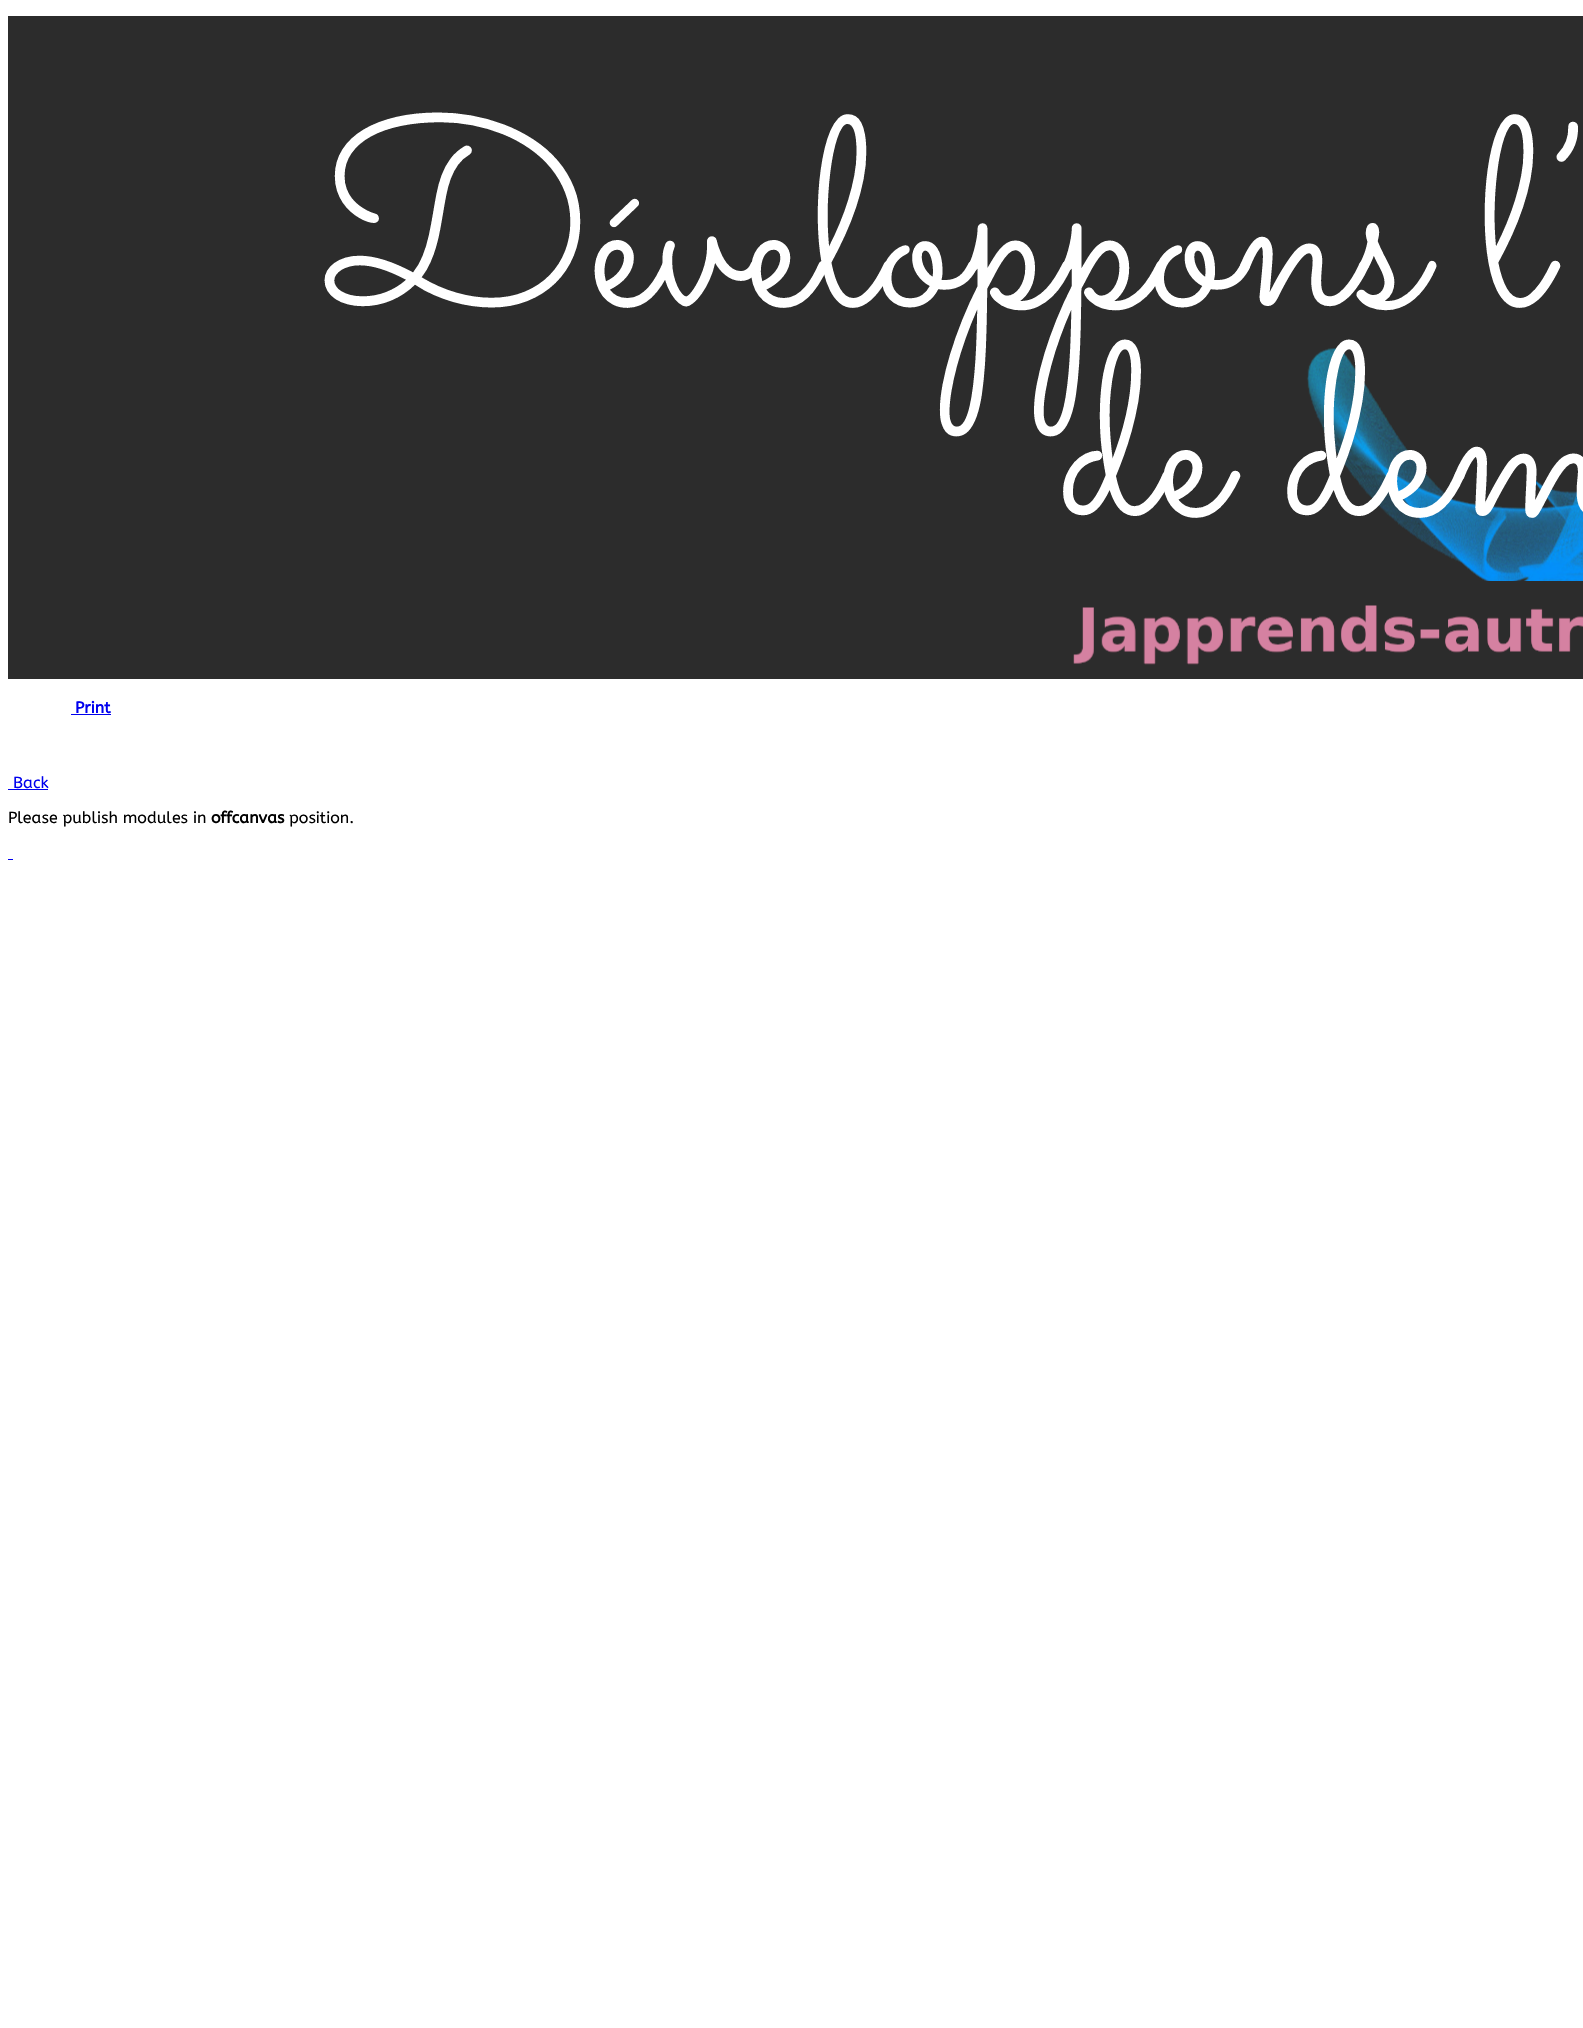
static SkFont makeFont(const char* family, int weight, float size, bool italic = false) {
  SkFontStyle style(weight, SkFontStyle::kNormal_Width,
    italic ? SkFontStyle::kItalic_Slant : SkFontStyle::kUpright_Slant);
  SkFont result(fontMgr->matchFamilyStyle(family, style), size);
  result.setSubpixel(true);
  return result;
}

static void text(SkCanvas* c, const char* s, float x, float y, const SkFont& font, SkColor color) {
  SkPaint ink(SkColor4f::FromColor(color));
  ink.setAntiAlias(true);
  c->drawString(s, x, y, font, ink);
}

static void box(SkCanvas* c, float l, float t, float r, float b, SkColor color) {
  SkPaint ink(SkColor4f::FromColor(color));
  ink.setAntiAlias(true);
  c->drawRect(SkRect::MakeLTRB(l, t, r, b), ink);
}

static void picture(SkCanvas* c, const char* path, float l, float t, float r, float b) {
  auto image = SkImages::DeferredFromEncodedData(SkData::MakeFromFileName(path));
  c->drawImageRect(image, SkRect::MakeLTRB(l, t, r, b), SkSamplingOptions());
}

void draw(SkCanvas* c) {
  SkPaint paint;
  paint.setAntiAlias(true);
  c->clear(0xffffffff);
  picture(c, "img_01.png", 8, 16, 1583, 679);
  SkFont face1 = makeFont("ABeeZee", 700, 16);
  text(c, "Print", 75, 713, face1, 0xff0000ee);
  box(c, 71, 714, 111, 715, 0xff0000ee);
  SkFont face2 = makeFont("ABeeZee", 400, 16);
  text(c, "Back", 13, 788, face2, 0xff0000ee);
  box(c, 8, 789, 48, 790, 0xff0000ee);
  text(c, "Please publish modules in", 8, 823, face2, 0xff000000);
  text(c, "offcanvas", 211, 823, face1, 0xff000000);
  text(c, "position.", 289, 823, face2, 0xff000000);
  box(c, 8, 859, 13, 860, 0xff0000ee);
}
